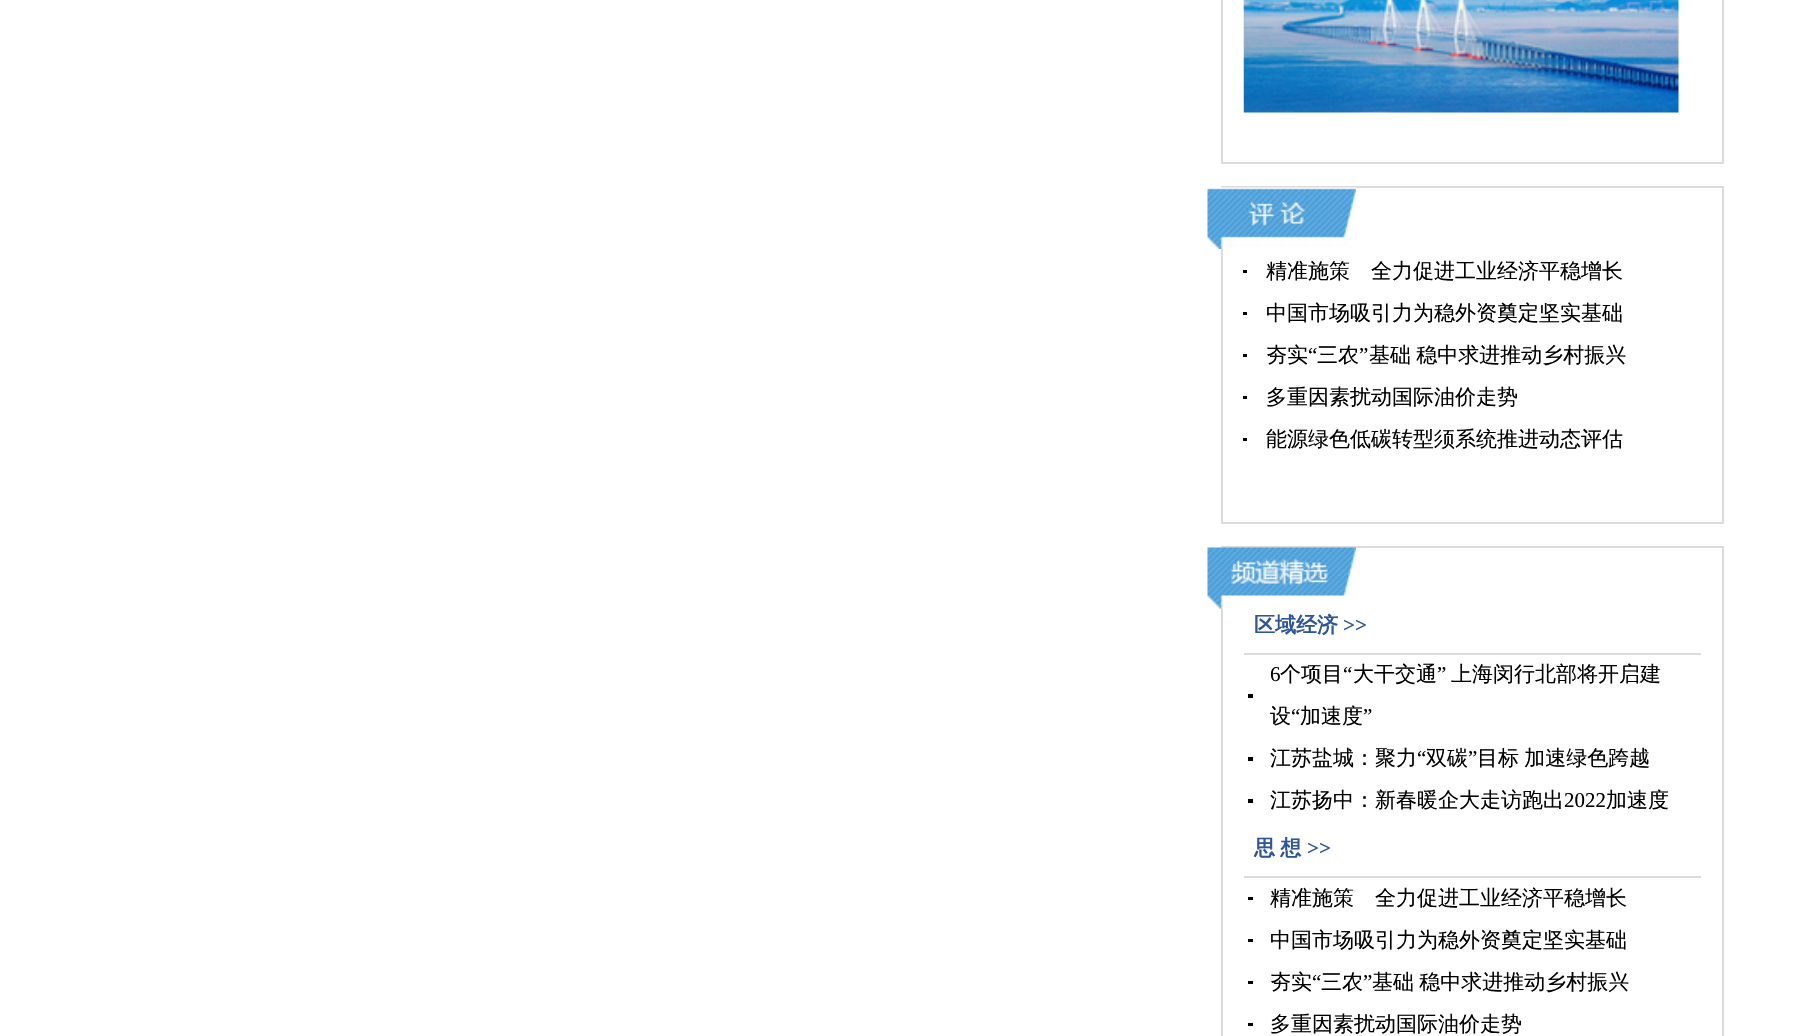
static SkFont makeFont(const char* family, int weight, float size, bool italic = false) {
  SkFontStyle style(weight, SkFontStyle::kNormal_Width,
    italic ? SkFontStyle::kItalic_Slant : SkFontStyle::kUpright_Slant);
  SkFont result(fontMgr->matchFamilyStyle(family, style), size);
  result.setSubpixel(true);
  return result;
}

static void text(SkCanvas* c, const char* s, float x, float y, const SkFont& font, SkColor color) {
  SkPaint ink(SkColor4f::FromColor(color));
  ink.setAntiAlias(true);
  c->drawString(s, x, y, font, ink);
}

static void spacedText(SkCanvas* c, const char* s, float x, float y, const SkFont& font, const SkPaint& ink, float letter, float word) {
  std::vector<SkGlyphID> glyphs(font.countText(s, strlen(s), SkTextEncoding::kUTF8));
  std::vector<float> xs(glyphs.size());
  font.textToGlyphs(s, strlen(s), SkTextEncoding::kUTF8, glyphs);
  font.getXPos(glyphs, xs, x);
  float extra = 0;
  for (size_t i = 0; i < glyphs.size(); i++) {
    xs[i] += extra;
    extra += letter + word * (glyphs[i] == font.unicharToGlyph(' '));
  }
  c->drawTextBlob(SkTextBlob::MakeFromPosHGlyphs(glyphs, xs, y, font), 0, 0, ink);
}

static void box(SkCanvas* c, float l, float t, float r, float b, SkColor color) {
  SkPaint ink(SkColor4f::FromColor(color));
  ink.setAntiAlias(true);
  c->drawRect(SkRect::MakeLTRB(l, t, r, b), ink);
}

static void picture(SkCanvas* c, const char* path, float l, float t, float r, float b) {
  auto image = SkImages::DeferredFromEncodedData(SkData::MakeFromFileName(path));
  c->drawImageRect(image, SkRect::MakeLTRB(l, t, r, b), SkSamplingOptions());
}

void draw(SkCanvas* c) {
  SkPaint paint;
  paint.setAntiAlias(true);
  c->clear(0xffffffff);
  paint.setStyle(SkPaint::kStroke_Style);
  paint.setStrokeWidth(2);
  paint.setColor(0xffdbdbdb);
  c->drawRect(SkRect::MakeLTRB(1222, -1, 1723, 163), paint);
  picture(c, "img_01.png", 1243, 0, 1679, 113);
  c->drawRect(SkRect::MakeLTRB(1222, 187, 1723, 523), paint);
  picture(c, "img_02.png", 1207, 187, 1356, 249);
  box(c, 1243, 270, 1247, 273, 0xff000000);
  SkFont face1 = makeFont("WenQuanYi Zen Hei", 500, 21);
  text(c, "精准施策　全力促进工业经济平稳增长", 1266, 278, face1, 0xff000000);
  box(c, 1243, 312, 1247, 315, 0xff000000);
  text(c, "中国市场吸引力为稳外资奠定坚实基础", 1266, 320, face1, 0xff000000);
  box(c, 1243, 354, 1247, 357, 0xff000000);
  text(c, "夯实", 1266, 362, face1, 0xff000000);
  SkFont face2 = makeFont("Liberation Serif", 400, 21);
  text(c, "“", 1308, 362, face2, 0xff000000);
  text(c, "三农", 1317, 362, face1, 0xff000000);
  text(c, "”", 1359, 362, face2, 0xff000000);
  paint.setStyle(SkPaint::kFill_Style);
  paint.setColor(0xff000000);
  spacedText(c, "基础 稳中求进推动乡村振兴", 1369, 362, face1, paint, 0, -1);
  box(c, 1243, 396, 1247, 399, 0xff000000);
  text(c, "多重因素扰动国际油价走势", 1266, 404, face1, 0xff000000);
  box(c, 1243, 438, 1247, 441, 0xff000000);
  text(c, "能源绿色低碳转型须系统推进动态评估", 1266, 446, face1, 0xff000000);
  paint.setStyle(SkPaint::kStroke_Style);
  paint.setColor(0xffdbdbdb);
  c->drawRect(SkRect::MakeLTRB(1222, 547, 1723, 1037), paint);
  picture(c, "img_03.png", 1207, 547, 1356, 609);
  box(c, 1244, 653, 1701, 655, 0xffdbdbdb);
  SkFont face3 = makeFont("WenQuanYi Zen Hei", 700, 21);
  text(c, "区域经济", 1254, 632, face3, 0xff2f569b);
  SkFont face4 = makeFont("Liberation Serif", 700, 21);
  text(c, ">>", 1343, 632, face4, 0xff2f569b);
  box(c, 1248, 694, 1253, 698, 0xff000000);
  text(c, "6", 1270, 681, face2, 0xff000000);
  text(c, "个项目", 1280, 681, face1, 0xff000000);
  text(c, "“", 1343, 681, face2, 0xff000000);
  text(c, "大干交通", 1353, 681, face1, 0xff000000);
  text(c, "”", 1437, 681, face2, 0xff000000);
  text(c, "上海闵行北部将开启建", 1451, 681, face1, 0xff000000);
  text(c, "设", 1270, 723, face1, 0xff000000);
  text(c, "“", 1291, 723, face2, 0xff000000);
  text(c, "加速度", 1300, 723, face1, 0xff000000);
  text(c, "”", 1363, 723, face2, 0xff000000);
  box(c, 1248, 757, 1253, 761, 0xff000000);
  text(c, "江苏盐城：聚力", 1270, 765, face1, 0xff000000);
  text(c, "“", 1417, 765, face2, 0xff000000);
  text(c, "双碳", 1426, 765, face1, 0xff000000);
  text(c, "”", 1468, 765, face2, 0xff000000);
  paint.setStyle(SkPaint::kFill_Style);
  paint.setColor(0xff000000);
  spacedText(c, "目标 加速绿色跨越", 1477, 765, face1, paint, 0, -1);
  box(c, 1248, 799, 1253, 803, 0xff000000);
  text(c, "江苏扬中：新春暖企大走访跑出", 1270, 807, face1, 0xff000000);
  text(c, "2022", 1564, 807, face2, 0xff000000);
  text(c, "加速度", 1606, 807, face1, 0xff000000);
  box(c, 1244, 876, 1701, 878, 0xffdbdbdb);
  paint.setColor(0xff2f569b);
  spacedText(c, "思 想", 1254, 855, face3, paint, 0, -1);
  text(c, ">>", 1307, 855, face4, 0xff2f569b);
  box(c, 1248, 897, 1253, 900, 0xff000000);
  text(c, "精准施策　全力促进工业经济平稳增长", 1270, 905, face1, 0xff000000);
  box(c, 1248, 939, 1253, 942, 0xff000000);
  text(c, "中国市场吸引力为稳外资奠定坚实基础", 1270, 947, face1, 0xff000000);
  box(c, 1248, 981, 1253, 984, 0xff000000);
  text(c, "夯实", 1270, 989, face1, 0xff000000);
  text(c, "“", 1312, 989, face2, 0xff000000);
  text(c, "三农", 1321, 989, face1, 0xff000000);
  text(c, "”", 1363, 989, face2, 0xff000000);
  paint.setColor(0xff000000);
  spacedText(c, "基础 稳中求进推动乡村振兴", 1372, 989, face1, paint, 0, -1);
  box(c, 1248, 1023, 1253, 1026, 0xff000000);
  text(c, "多重因素扰动国际油价走势", 1270, 1031, face1, 0xff000000);
}
